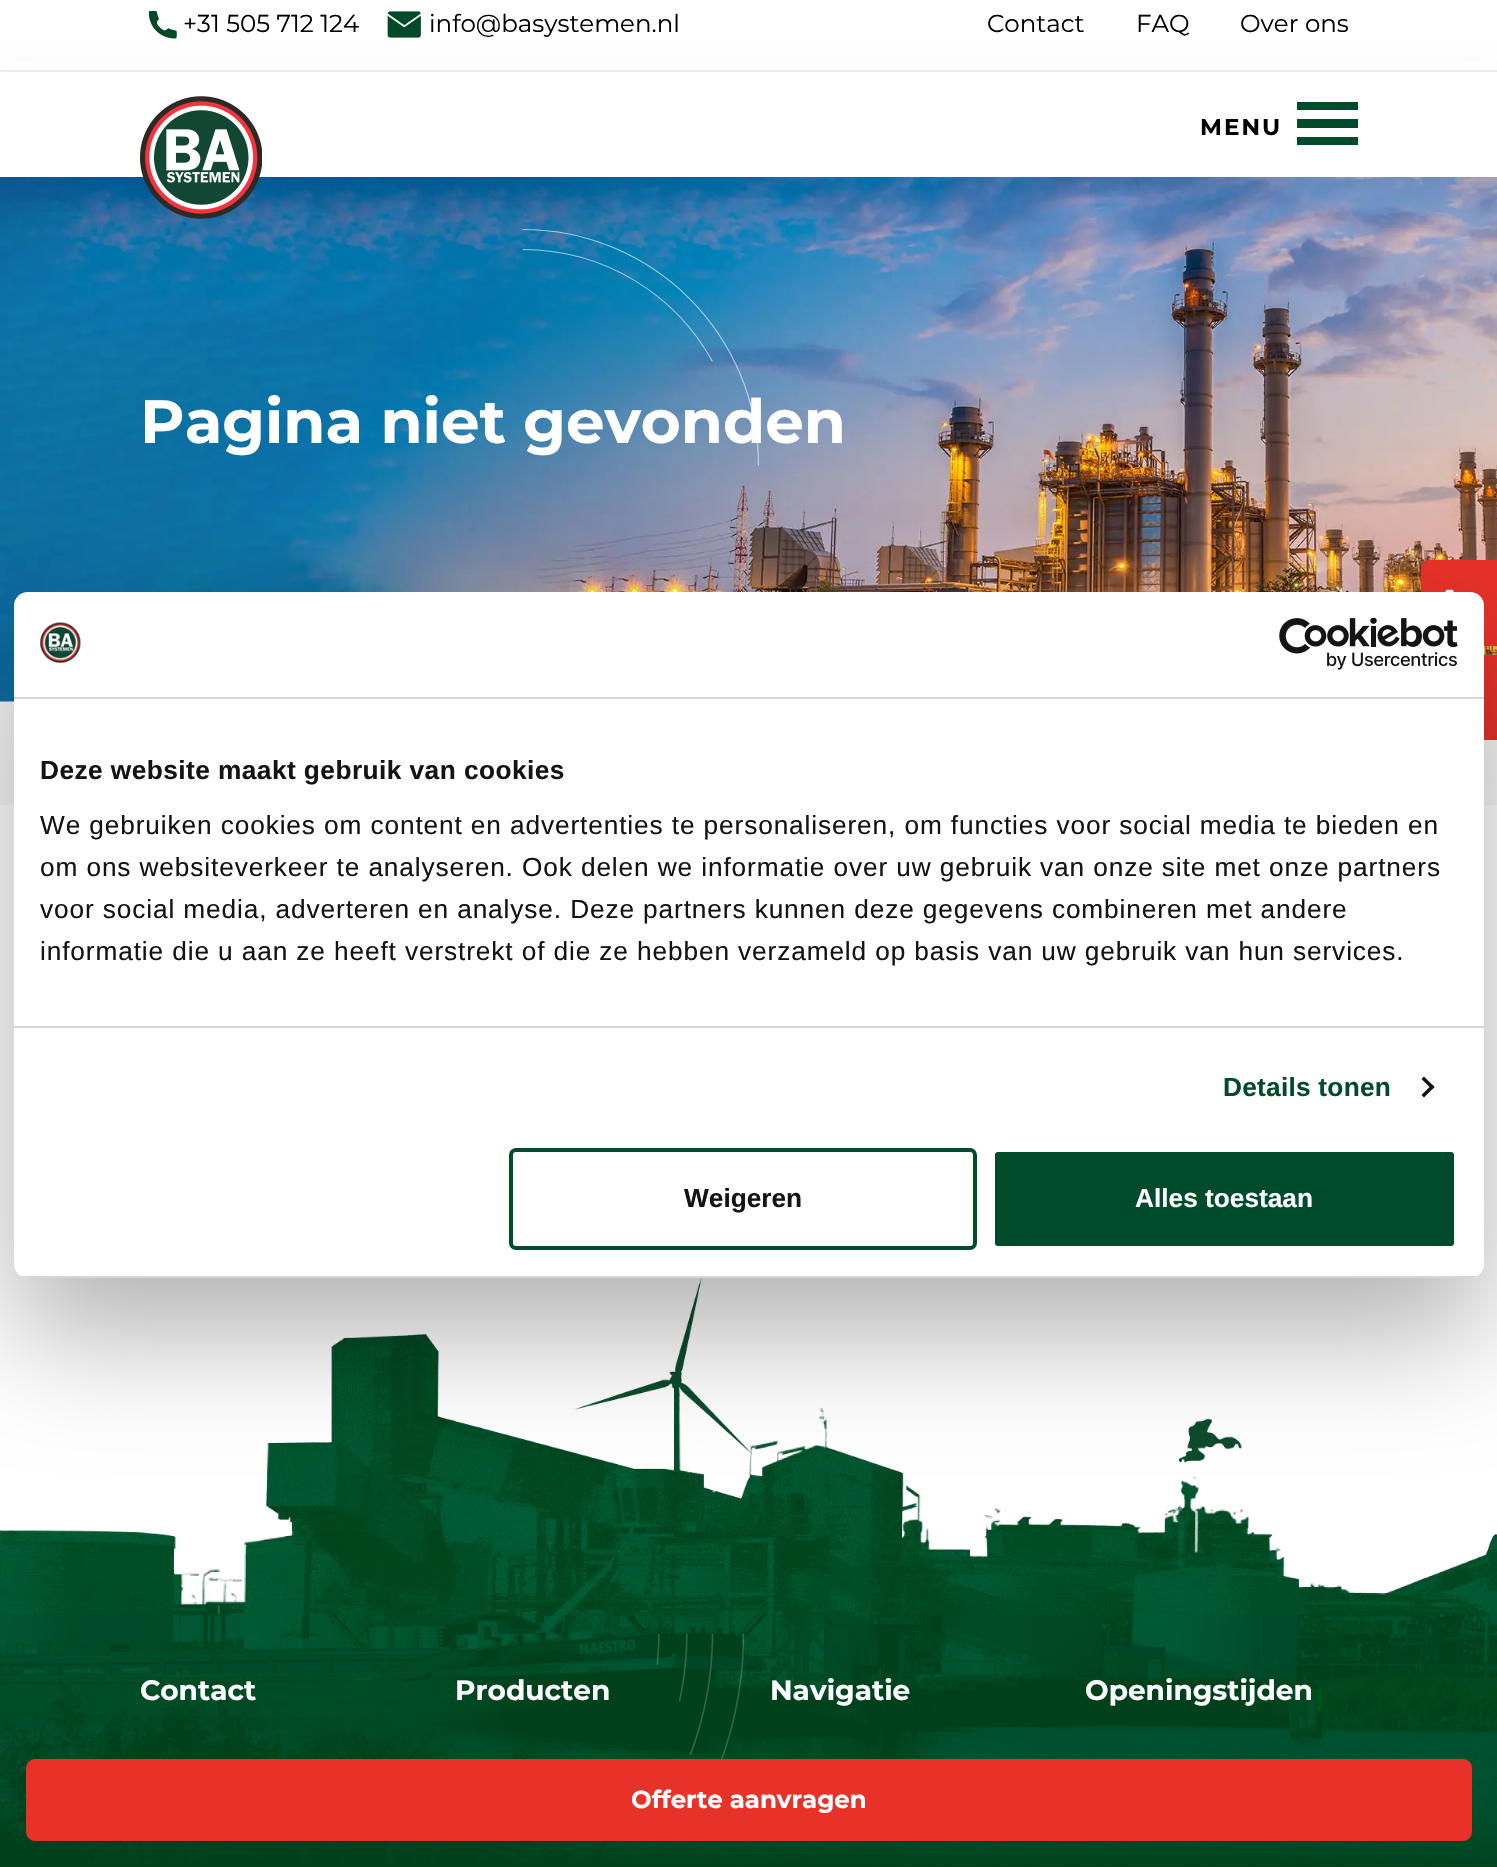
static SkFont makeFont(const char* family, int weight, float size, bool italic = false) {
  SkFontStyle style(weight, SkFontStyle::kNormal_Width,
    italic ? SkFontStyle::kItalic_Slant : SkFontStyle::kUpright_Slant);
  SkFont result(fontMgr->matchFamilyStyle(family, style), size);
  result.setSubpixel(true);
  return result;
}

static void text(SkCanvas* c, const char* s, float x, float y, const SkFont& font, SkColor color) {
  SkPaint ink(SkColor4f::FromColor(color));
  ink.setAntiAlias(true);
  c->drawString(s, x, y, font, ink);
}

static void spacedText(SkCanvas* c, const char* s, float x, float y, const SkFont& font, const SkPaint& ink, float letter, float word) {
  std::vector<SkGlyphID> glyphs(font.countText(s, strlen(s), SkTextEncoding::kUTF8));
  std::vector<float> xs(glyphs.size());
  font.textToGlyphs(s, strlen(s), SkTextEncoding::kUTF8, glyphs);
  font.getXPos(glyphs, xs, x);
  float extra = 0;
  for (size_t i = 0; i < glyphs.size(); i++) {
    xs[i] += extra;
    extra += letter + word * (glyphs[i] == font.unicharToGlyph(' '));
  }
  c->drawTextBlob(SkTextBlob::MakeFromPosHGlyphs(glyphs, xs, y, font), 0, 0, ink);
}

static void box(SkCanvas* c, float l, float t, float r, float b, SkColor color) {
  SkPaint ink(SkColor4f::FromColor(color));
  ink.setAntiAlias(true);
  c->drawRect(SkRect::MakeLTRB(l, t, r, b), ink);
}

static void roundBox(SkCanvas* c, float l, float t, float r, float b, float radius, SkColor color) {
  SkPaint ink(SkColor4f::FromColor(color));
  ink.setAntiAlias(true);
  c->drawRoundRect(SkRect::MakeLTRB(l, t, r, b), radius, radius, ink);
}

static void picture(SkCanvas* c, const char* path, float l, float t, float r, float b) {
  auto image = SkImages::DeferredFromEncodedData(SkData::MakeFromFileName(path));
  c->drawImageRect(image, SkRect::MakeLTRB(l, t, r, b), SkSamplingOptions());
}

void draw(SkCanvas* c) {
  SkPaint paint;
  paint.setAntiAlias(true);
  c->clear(0xffffffff);
  picture(c, "img_03.png", 0, 177, 1497, 702);
  paint.setStyle(SkPaint::kStroke_Style);
  paint.setStrokeWidth(1.1f);
  paint.setColor(0x99ffffff);
  c->drawPath(SkPathBuilder().moveTo(522.5f, 229.5f).cubicTo(653, 229.5f, 758.5f, 335, 758.5f, 465.5f).detach(), paint);
  paint.setStyle(SkPaint::kFill_Style);
  paint.setColor(0x12000000);
  paint.setMaskFilter(SkMaskFilter::MakeBlur(kNormal_SkBlurStyle, 17.5f));
  c->drawRect(SkRect::MakeLTRB(0, 81, 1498, 186), paint);
  paint.setMaskFilter(nullptr);
  box(c, 3, 62, 1495, 70, 0xffffffff);
  box(c, 0, 70, 1497, 72, 0xffeeecec);
  picture(c, "img_01.png", 149, 11, 177, 39);
  SkFont face1 = makeFont("Montserrat", 400, 24.5f);
  text(c, "+31 505 712 124", 183, 32, face1, 0xff000000);
  picture(c, "img_02.png", 387, 11, 421, 38);
  text(c, "info@basystemen.nl", 429, 32, face1, 0xff000000);
  text(c, "Contact", 987, 32, face1, 0xff000000);
  text(c, "FAQ", 1136, 32, face1, 0xff000000);
  text(c, "Over ons", 1240, 32, face1, 0xff000000);
  paint.setStyle(SkPaint::kStroke_Style);
  paint.setColor(0x99ffffff);
  c->drawPath(SkPathBuilder().moveTo(522.5f, 249.5f).cubicTo(604.5f, 249.5f, 675.5f, 294.5f, 712.5f, 361.5f).detach(), paint);
  SkFont face2 = makeFont("Montserrat", 700, 61);
  text(c, "Pagina niet gevonden", 140, 443, face2, 0xffffffff);
  box(c, 0, 72, 1497, 177, 0xffffffff);
  picture(c, "img_04.png", 140, 96, 262, 219);
  SkFont face3 = makeFont("Montserrat", 700, 23);
  paint.setStyle(SkPaint::kFill_Style);
  paint.setColor(0xff000000);
  spacedText(c, "MENU", 1200, 135, face3, paint, 2, 0);
  box(c, 1297, 119, 1358, 128, 0xff004b2c);
  box(c, 1297, 102, 1358, 110, 0xff004b2c);
  box(c, 1297, 137, 1358, 145, 0xff004b2c);
  picture(c, "img_10.png", 0, 1615, 1497, 1865);
  paint.setColor(0xffe83129);
  c->drawRoundRect(SkRect::MakeLTRB(28, 1761, 1470, 1839), 7, 7, paint);
  paint.setStyle(SkPaint::kStroke_Style);
  paint.setStrokeWidth(4);
  c->drawRoundRect(SkRect::MakeLTRB(28, 1761, 1470, 1839), 7, 7, paint);
  SkFont face4 = makeFont("Montserrat", 700, 24.5f);
  text(c, "Offerte aanvragen", 631, 1808, face4, 0xffffffff);
  paint.setStyle(SkPaint::kFill_Style);
  c->drawPath(SkPathBuilder().moveTo(1430, 560).lineTo(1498, 560).lineTo(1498, 646).lineTo(1430, 646).cubicTo(1425, 646, 1421, 642, 1421, 637).lineTo(1421, 569).cubicTo(1421, 564, 1425, 560, 1430, 560).close().detach(), paint);
  picture(c, "img_05.png", 1445, 589, 1454, 592);
  box(c, 0, 702, 1497, 805, 0xfff7f7f7);
  box(c, 1484, 655, 1497, 740, 0xffe83129);
  picture(c, "img_09.png", 0, 1276, 1497, 1615);
  SkFont face5 = makeFont("Montserrat", 700, 28);
  text(c, "Contact", 140, 1700, face5, 0xffffffff);
  text(c, "Producten", 455, 1700, face5, 0xffffffff);
  picture(c, "img_08.png", 218, 1463, 744, 1759);
  paint.setColor(0x4d000000);
  paint.setMaskFilter(SkMaskFilter::MakeBlur(kNormal_SkBlurStyle, 59.5f));
  c->drawRoundRect(SkRect::MakeLTRB(14, 648, 1484, 1334), 14, 14, paint);
  paint.setMaskFilter(nullptr);
  roundBox(c, 14, 592, 1484, 1278, 14, 0xffffffff);
  box(c, 14, 697, 1484, 699, 0xffd6d6d6);
  picture(c, "img_06.png", 40, 622, 81, 663);
  picture(c, "img_07.png", 1279, 618, 1458, 670);
  box(c, 14, 1026, 1484, 1028, 0xffd6d6d6);
  SkFont face6 = makeFont("Liberation Sans", 700, 26.25f);
  paint.setColor(0xff141414);
  spacedText(c, "Deze website maakt gebruik van cookies", 40, 779, face6, paint, 0.45f, 0);
  SkFont face7 = makeFont("Liberation Sans", 400, 26.25f);
  spacedText(c, "We gebruiken cookies om content en advertenties te personaliseren, om functies voor social media te bieden en", 40, 834, face7, paint, 0.88f, 0);
  spacedText(c, "om ons websiteverkeer te analyseren. Ook delen we informatie over uw gebruik van onze site met onze partners", 40, 876, face7, paint, 0.88f, 0);
  spacedText(c, "voor social media, adverteren en analyse. Deze partners kunnen deze gegevens combineren met andere", 40, 918, face7, paint, 0.88f, 0);
  spacedText(c, "informatie die u aan ze heeft verstrekt of die ze hebben verzameld op basis van uw gebruik van hun services.", 40, 960, face7, paint, 0.88f, 0);
  paint.setColor(0xff004b2c);
  spacedText(c, "Details tonen", 1223, 1096, face6, paint, 0.25f, 0);
  paint.setColor(0xff141414);
  c->drawPath(SkPathBuilder().moveTo(1424, 1076.5f).lineTo(1434.5f, 1087).lineTo(1432, 1089.5f).lineTo(1421.5f, 1079).close().detach(), paint);
  c->drawPath(SkPathBuilder().moveTo(1432, 1084.5f).lineTo(1434.5f, 1087).lineTo(1424, 1097.5f).lineTo(1421.5f, 1095).close().detach(), paint);
  c->save();
  c->clipPath(SkPathBuilder().moveTo(28, 592).lineTo(1470, 592).cubicTo(1477.5f, 592, 1484, 598.5f, 1484, 606).lineTo(1484, 1264).cubicTo(1484, 1271.5f, 1477.5f, 1278, 1470, 1278).lineTo(28, 1278).cubicTo(20.5f, 1278, 14, 1271.5f, 14, 1264).lineTo(14, 606).cubicTo(14, 598.5f, 20.5f, 592, 28, 592).close().detach(), true);
  box(c, 14, 1276, 1484, 1278, 0xffd6d6d6);
  c->restore();
  paint.setStyle(SkPaint::kStroke_Style);
  paint.setColor(0xff004b2c);
  c->drawRoundRect(SkRect::MakeLTRB(511, 1150, 975, 1248), 5, 5, paint);
  text(c, "Weigeren", 684, 1207, face6, 0xff141414);
  paint.setStyle(SkPaint::kFill_Style);
  c->drawRoundRect(SkRect::MakeLTRB(993, 1150, 1456, 1248), 5, 5, paint);
  paint.setStyle(SkPaint::kStroke_Style);
  paint.setColor(0xffffffff);
  c->drawRoundRect(SkRect::MakeLTRB(993, 1150, 1456, 1248), 5, 5, paint);
  text(c, "Alles toestaan", 1135, 1207, face6, 0xffffffff);
  box(c, 0, 1865, 1497, 1867, 0xff00411c);
  text(c, "Navigatie", 770, 1700, face5, 0xffffffff);
  text(c, "Openingstijden", 1085, 1700, face5, 0xffffffff);
}
